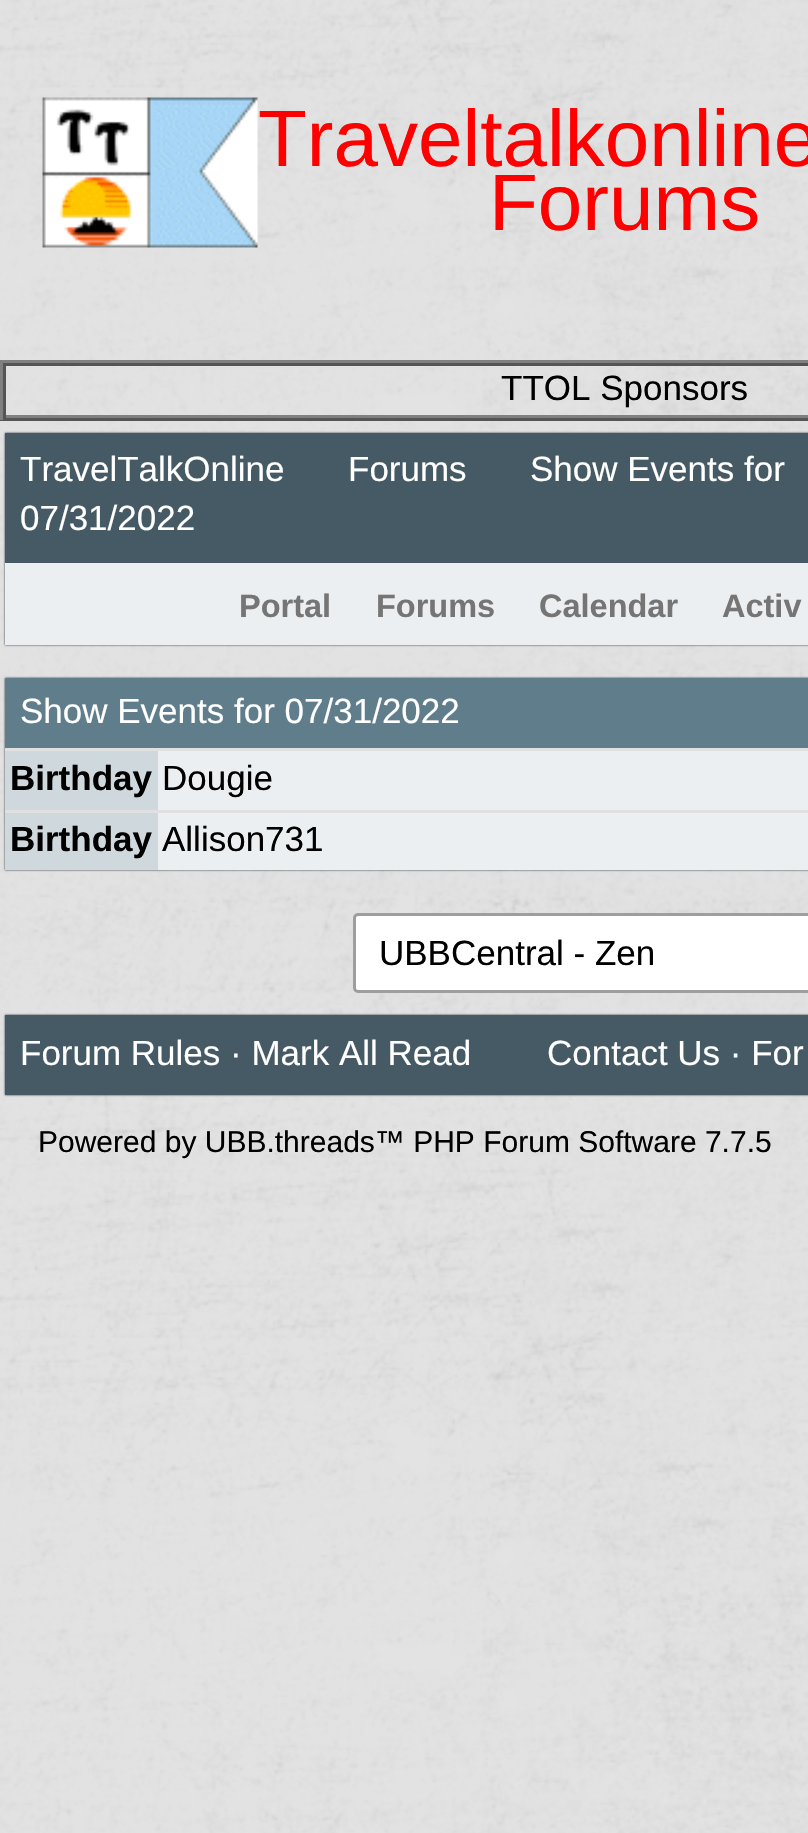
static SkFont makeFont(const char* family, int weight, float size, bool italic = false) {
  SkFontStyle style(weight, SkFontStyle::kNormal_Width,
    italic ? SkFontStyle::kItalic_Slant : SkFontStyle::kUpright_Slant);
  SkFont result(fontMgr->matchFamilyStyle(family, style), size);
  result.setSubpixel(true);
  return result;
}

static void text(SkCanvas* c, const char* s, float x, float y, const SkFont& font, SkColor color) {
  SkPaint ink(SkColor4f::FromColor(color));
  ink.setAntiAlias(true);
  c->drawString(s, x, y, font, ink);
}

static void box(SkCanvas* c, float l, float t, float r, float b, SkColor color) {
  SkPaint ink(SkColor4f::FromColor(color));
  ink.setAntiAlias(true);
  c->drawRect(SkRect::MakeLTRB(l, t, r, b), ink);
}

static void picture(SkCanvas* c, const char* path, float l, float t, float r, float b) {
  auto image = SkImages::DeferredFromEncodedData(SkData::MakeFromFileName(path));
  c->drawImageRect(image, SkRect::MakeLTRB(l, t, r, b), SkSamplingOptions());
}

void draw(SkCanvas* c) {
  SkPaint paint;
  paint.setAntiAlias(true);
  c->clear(0xffffffff);
  picture(c, "img_01.png", 0, 0, 808, 1833);
  picture(c, "img_02.png", 42, 97, 258, 248);
  SkFont face1 = makeFont("Liberation Sans", 400, 80);
  text(c, "Traveltalkonline", 258, 166, face1, 0xffff0000);
  text(c, "Forums", 489, 230, face1, 0xffff0000);
  box(c, 0, 360, 808, 363, 0xff808080);
  box(c, 0, 418, 808, 421, 0xff555555);
  box(c, 0, 360, 3, 420, 0xff808080);
  box(c, 3, 363, 808, 366, 0xff555555);
  box(c, 3, 415, 808, 418, 0xff808080);
  box(c, 3, 363, 6, 418, 0xff555555);
  SkFont face2 = makeFont("Liberation Sans", 400, 35);
  text(c, "TTOL Sponsors", 501, 400, face2, 0xff000000);
  paint.setColor(0xff263238);
  paint.setMaskFilter(SkMaskFilter::MakeBlur(kNormal_SkBlurStyle, 1));
  c->drawRect(SkRect::MakeLTRB(5, 433, 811, 645), paint);
  paint.setMaskFilter(nullptr);
  box(c, 5, 433, 808, 563, 0xff455a64);
  text(c, "TravelTalkOnline", 20, 481, face2, 0xffffffff);
  text(c, "Forums", 348, 481, face2, 0xffffffff);
  text(c, "Show Events for", 530, 481, face2, 0xffffffff);
  text(c, "07/31/2022", 20, 530, face2, 0xffffffff);
  box(c, 5, 563, 808, 645, 0xffeceff1);
  SkFont face3 = makeFont("Liberation Sans", 700, 32.5f);
  text(c, "Portal", 239, 617, face3, 0xff757575);
  text(c, "Forums", 376, 617, face3, 0xff757575);
  text(c, "Calendar", 539, 617, face3, 0xff757575);
  text(c, "Activ", 722, 617, face3, 0xff757575);
  paint.setMaskFilter(SkMaskFilter::MakeBlur(kNormal_SkBlurStyle, 1));
  c->drawRect(SkRect::MakeLTRB(5, 678, 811, 870), paint);
  paint.setMaskFilter(nullptr);
  box(c, 5, 678, 808, 748, 0xff607d8b);
  text(c, "Show Events for 07/31/2022", 20, 723, face2, 0xffffffff);
  box(c, 5, 751, 158, 810, 0xffcfd8dc);
  box(c, 5, 748, 808, 751, 0xffe0e0e0);
  SkFont face4 = makeFont("Liberation Sans", 700, 35);
  text(c, "Birthday", 10, 790, face4, 0xff000000);
  box(c, 158, 751, 808, 810, 0xffeceff1);
  text(c, "Dougie", 162, 790, face2, 0xff000000);
  box(c, 5, 813, 158, 870, 0xffcfd8dc);
  box(c, 5, 810, 808, 813, 0xffe0e0e0);
  text(c, "Birthday", 10, 851, face4, 0xff000000);
  box(c, 158, 813, 808, 870, 0xffeceff1);
  text(c, "Allison731", 162, 851, face2, 0xff000000);
  paint.setColor(0xffffffff);
  c->drawRoundRect(SkRect::MakeLTRB(354.5f, 914.5f, 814.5f, 991.5f), 3.5f, 3.5f, paint);
  paint.setStyle(SkPaint::kStroke_Style);
  paint.setStrokeWidth(3);
  paint.setColor(0xff9e9e9e);
  c->drawRoundRect(SkRect::MakeLTRB(354.5f, 914.5f, 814.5f, 991.5f), 3.5f, 3.5f, paint);
  text(c, "UBBCentral - Zen", 379, 965, face2, 0xff000000);
  paint.setStyle(SkPaint::kFill_Style);
  paint.setColor(0xff263238);
  paint.setMaskFilter(SkMaskFilter::MakeBlur(kNormal_SkBlurStyle, 1));
  c->drawRect(SkRect::MakeLTRB(5, 1015, 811, 1095), paint);
  paint.setMaskFilter(nullptr);
  box(c, 5, 1015, 808, 1095, 0xff455a64);
  text(c, "Forum Rules · Mark All Read", 20, 1065, face2, 0xffffffff);
  text(c, "Contact Us · For", 547, 1065, face2, 0xffffffff);
  SkFont face5 = makeFont("Liberation Sans", 400, 30);
  text(c, "Powered by UBB.threads™ PHP Forum Software 7.7.5", 38, 1152, face5, 0xff000000);
}
